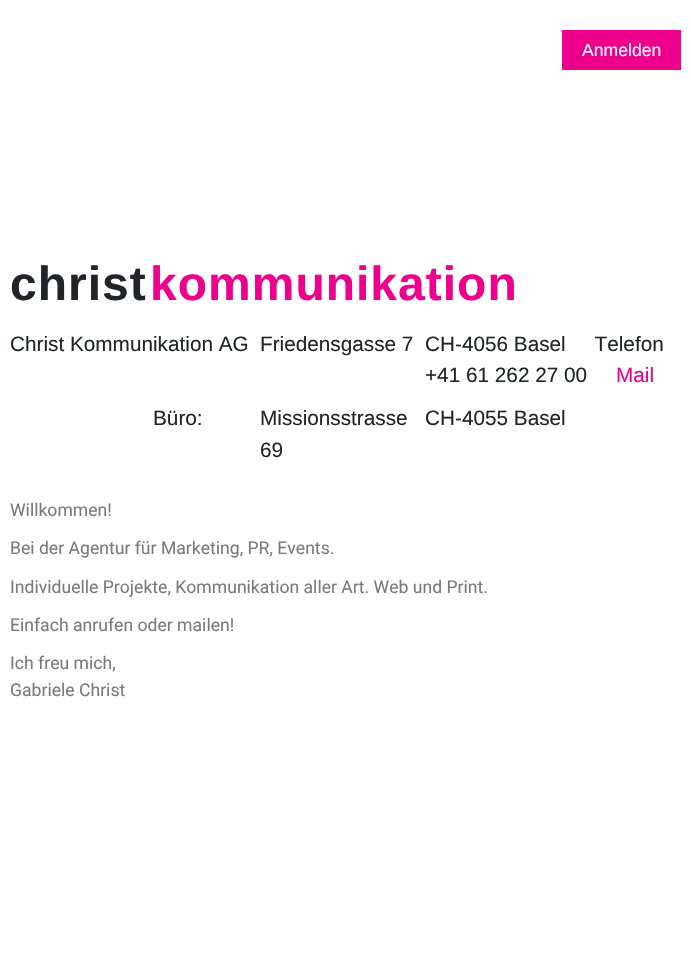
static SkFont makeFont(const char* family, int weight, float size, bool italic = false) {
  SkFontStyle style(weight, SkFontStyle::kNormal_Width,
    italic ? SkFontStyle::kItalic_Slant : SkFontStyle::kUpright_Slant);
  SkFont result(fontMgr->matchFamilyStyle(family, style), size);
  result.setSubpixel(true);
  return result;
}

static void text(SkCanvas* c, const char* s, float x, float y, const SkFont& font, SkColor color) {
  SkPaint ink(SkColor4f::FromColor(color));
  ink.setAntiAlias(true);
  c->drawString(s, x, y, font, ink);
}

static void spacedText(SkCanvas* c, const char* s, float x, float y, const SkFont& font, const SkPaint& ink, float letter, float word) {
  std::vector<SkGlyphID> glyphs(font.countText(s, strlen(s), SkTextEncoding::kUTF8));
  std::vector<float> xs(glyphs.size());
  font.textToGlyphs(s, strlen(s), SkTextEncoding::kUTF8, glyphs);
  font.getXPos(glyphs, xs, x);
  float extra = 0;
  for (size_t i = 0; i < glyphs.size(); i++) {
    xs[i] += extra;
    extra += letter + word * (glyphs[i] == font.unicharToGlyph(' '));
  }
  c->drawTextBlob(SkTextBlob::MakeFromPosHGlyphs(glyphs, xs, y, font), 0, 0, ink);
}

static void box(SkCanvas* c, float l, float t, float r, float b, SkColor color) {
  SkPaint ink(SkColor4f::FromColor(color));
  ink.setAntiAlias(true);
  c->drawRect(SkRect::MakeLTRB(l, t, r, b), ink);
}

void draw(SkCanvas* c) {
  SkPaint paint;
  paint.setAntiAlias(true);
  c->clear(0xffffffff);
  box(c, 562, 30, 681, 70, 0xffec008c);
  SkFont face1 = makeFont("Liberation Sans", 400, 17.6f);
  text(c, "Anmelden", 582, 56, face1, 0xffffffff);
  SkFont face2 = makeFont("Liberation Sans", 700, 48);
  paint.setColor(0xff212529);
  spacedText(c, "christ", 10, 300, face2, paint, 1, 0);
  paint.setColor(0xffec008c);
  spacedText(c, "kommunikation", 150, 300, face2, paint, 1, 0);
  SkFont face3 = makeFont("Liberation Sans", 400, 20.75f);
  text(c, "Christ Kommunikation AG", 10, 351, face3, 0xff212529);
  text(c, "Friedensgasse 7", 260, 351, face3, 0xff212529);
  text(c, "CH-4056 Basel     Telefon", 425, 351, face3, 0xff212529);
  text(c, "+41 61 262 27 00", 425, 382, face3, 0xff212529);
  text(c, "Mail", 616, 382, face3, 0xffec008c);
  text(c, "Büro:", 153, 425, face3, 0xff212529);
  text(c, "Missionsstrasse", 260, 425, face3, 0xff212529);
  text(c, "69", 260, 457, face3, 0xff212529);
  text(c, "CH-4055 Basel", 425, 425, face3, 0xff212529);
  SkFont face4 = makeFont("Roboto", 400, 17.6f);
  text(c, "Willkommen!", 10, 516, face4, 0xff7a7a7a);
  text(c, "Bei der Agentur für Marketing, PR, Events.", 10, 554, face4, 0xff7a7a7a);
  text(c, "Individuelle Projekte, Kommunikation aller Art. Web und Print.", 10, 593, face4, 0xff7a7a7a);
  text(c, "Einfach anrufen oder mailen!", 10, 631, face4, 0xff7a7a7a);
  text(c, "Ich freu mich,", 10, 669, face4, 0xff7a7a7a);
  text(c, "Gabriele Christ", 10, 696, face4, 0xff7a7a7a);
}
